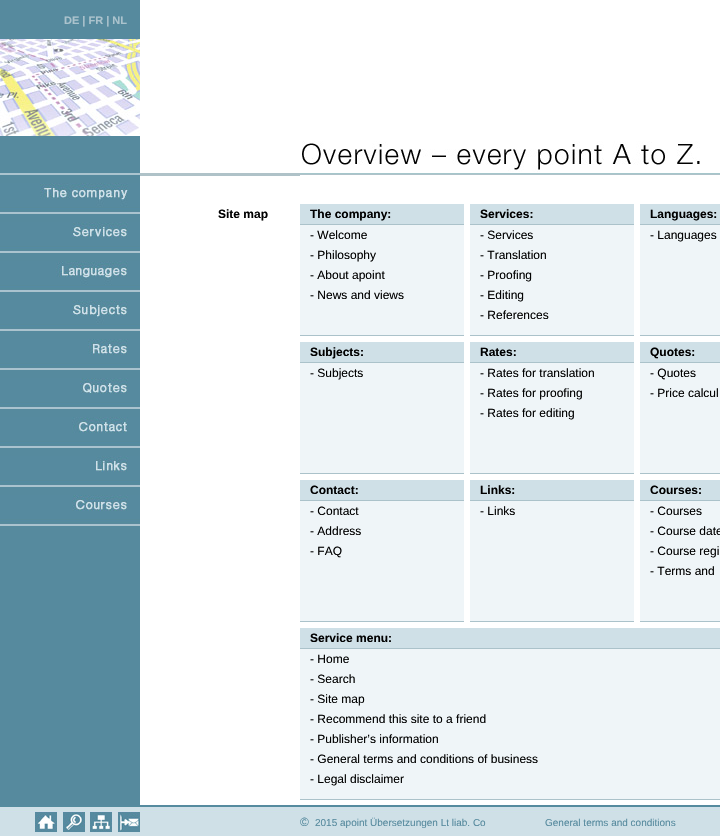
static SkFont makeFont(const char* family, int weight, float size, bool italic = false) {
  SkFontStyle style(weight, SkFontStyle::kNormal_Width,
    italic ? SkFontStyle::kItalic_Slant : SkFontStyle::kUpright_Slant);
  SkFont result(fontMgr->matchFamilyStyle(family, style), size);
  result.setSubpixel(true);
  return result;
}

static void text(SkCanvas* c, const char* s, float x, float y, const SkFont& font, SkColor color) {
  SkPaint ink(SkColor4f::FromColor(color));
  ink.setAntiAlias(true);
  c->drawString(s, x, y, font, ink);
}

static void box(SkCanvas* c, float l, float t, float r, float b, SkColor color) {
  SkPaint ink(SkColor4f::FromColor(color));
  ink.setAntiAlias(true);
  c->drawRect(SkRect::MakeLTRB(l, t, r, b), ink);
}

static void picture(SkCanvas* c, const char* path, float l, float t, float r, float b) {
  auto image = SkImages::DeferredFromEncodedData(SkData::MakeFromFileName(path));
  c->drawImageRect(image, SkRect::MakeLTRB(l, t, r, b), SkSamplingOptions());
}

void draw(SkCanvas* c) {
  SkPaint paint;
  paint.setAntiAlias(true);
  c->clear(0xffffffff);
  box(c, 0, 0, 140, 805, 0xff568a9e);
  SkFont face1 = makeFont("Liberation Sans", 700, 11);
  text(c, "DE | FR | NL", 64, 24, face1, 0xffabc3cd);
  picture(c, "img_01.png", 0, 39, 140, 136);
  box(c, 0, 173, 140, 175, 0xffabc4cf);
  picture(c, "img_02.png", 0, 183, 140, 214);
  picture(c, "img_03.png", 0, 222, 140, 253);
  picture(c, "img_04.png", 0, 261, 140, 292);
  picture(c, "img_05.png", 0, 300, 140, 331);
  picture(c, "img_06.png", 0, 339, 140, 370);
  picture(c, "img_07.png", 0, 378, 140, 409);
  picture(c, "img_08.png", 0, 417, 140, 448);
  picture(c, "img_09.png", 0, 456, 140, 487);
  picture(c, "img_10.png", 0, 495, 140, 526);
  picture(c, "img_11.png", 302, 141, 700, 172);
  box(c, 140, 173, 300, 176, 0xffafc2c8);
  SkFont face2 = makeFont("Liberation Sans", 700, 12);
  text(c, "Site map", 218, 218, face2, 0xff000000);
  picture(c, "img_12.png", 300, 173, 720, 175);
  box(c, 300, 204, 464, 224, 0xffcfe0e7);
  text(c, "The company:", 310, 218, face2, 0xff000000);
  box(c, 470, 204, 634, 224, 0xffcfe0e7);
  text(c, "Services:", 480, 218, face2, 0xff000000);
  box(c, 640, 204, 720, 224, 0xffcfe0e7);
  text(c, "Languages:", 650, 218, face2, 0xff000000);
  box(c, 300, 224, 464, 225, 0xffabc2ca);
  box(c, 470, 224, 634, 225, 0xffabc2ca);
  box(c, 640, 224, 720, 225, 0xffabc2ca);
  box(c, 300, 225, 464, 335, 0xffeff5f8);
  SkFont face3 = makeFont("Liberation Sans", 400, 12);
  text(c, "- Welcome", 310, 239, face3, 0xff000000);
  box(c, 470, 225, 634, 335, 0xffeff5f8);
  text(c, "- Services", 480, 239, face3, 0xff000000);
  box(c, 640, 225, 720, 335, 0xffeff5f8);
  text(c, "- Languages", 650, 239, face3, 0xff000000);
  text(c, "- Philosophy", 310, 259, face3, 0xff000000);
  text(c, "- Translation", 480, 259, face3, 0xff000000);
  text(c, "- About apoint", 310, 279, face3, 0xff000000);
  text(c, "- Proofing", 480, 279, face3, 0xff000000);
  text(c, "- News and views", 310, 299, face3, 0xff000000);
  text(c, "- Editing", 480, 299, face3, 0xff000000);
  text(c, "- References", 480, 319, face3, 0xff000000);
  box(c, 300, 335, 464, 336, 0xffabc2ca);
  box(c, 470, 335, 634, 336, 0xffabc2ca);
  box(c, 640, 335, 720, 336, 0xffabc2ca);
  box(c, 300, 342, 464, 362, 0xffcfe0e7);
  text(c, "Subjects:", 310, 356, face2, 0xff000000);
  box(c, 470, 342, 634, 362, 0xffcfe0e7);
  text(c, "Rates:", 480, 356, face2, 0xff000000);
  box(c, 640, 342, 720, 362, 0xffcfe0e7);
  text(c, "Quotes:", 650, 356, face2, 0xff000000);
  box(c, 300, 362, 464, 363, 0xffabc2ca);
  box(c, 470, 362, 634, 363, 0xffabc2ca);
  box(c, 640, 362, 720, 363, 0xffabc2ca);
  box(c, 300, 363, 464, 473, 0xffeff5f8);
  text(c, "- Subjects", 310, 377, face3, 0xff000000);
  box(c, 470, 363, 634, 473, 0xffeff5f8);
  text(c, "- Rates for translation", 480, 377, face3, 0xff000000);
  box(c, 640, 363, 720, 473, 0xffeff5f8);
  text(c, "- Quotes", 650, 377, face3, 0xff000000);
  text(c, "- Rates for proofing", 480, 397, face3, 0xff000000);
  text(c, "- Price calcul", 650, 397, face3, 0xff000000);
  text(c, "- Rates for editing", 480, 417, face3, 0xff000000);
  box(c, 300, 473, 464, 474, 0xffabc2ca);
  box(c, 470, 473, 634, 474, 0xffabc2ca);
  box(c, 640, 473, 720, 474, 0xffabc2ca);
  box(c, 300, 480, 464, 500, 0xffcfe0e7);
  text(c, "Contact:", 310, 494, face2, 0xff000000);
  box(c, 470, 480, 634, 500, 0xffcfe0e7);
  text(c, "Links:", 480, 494, face2, 0xff000000);
  box(c, 640, 480, 720, 500, 0xffcfe0e7);
  text(c, "Courses:", 650, 494, face2, 0xff000000);
  box(c, 300, 500, 464, 501, 0xffabc2ca);
  box(c, 470, 500, 634, 501, 0xffabc2ca);
  box(c, 640, 500, 720, 501, 0xffabc2ca);
  box(c, 300, 501, 464, 621, 0xffeff5f8);
  text(c, "- Contact", 310, 515, face3, 0xff000000);
  box(c, 470, 501, 634, 621, 0xffeff5f8);
  text(c, "- Links", 480, 515, face3, 0xff000000);
  box(c, 640, 501, 720, 621, 0xffeff5f8);
  text(c, "- Courses", 650, 515, face3, 0xff000000);
  text(c, "- Address", 310, 535, face3, 0xff000000);
  text(c, "- Course date", 650, 535, face3, 0xff000000);
  text(c, "- FAQ", 310, 555, face3, 0xff000000);
  text(c, "- Course regi", 650, 555, face3, 0xff000000);
  text(c, "- Terms and", 650, 575, face3, 0xff000000);
  box(c, 300, 621, 464, 622, 0xffabc2ca);
  box(c, 470, 621, 634, 622, 0xffabc2ca);
  box(c, 640, 621, 720, 622, 0xffabc2ca);
  box(c, 300, 628, 720, 648, 0xffcfe0e7);
  text(c, "Service menu:", 310, 642, face2, 0xff000000);
  box(c, 300, 648, 720, 649, 0xffabc2ca);
  box(c, 300, 649, 720, 799, 0xffeff5f8);
  text(c, "- Home", 310, 663, face3, 0xff000000);
  text(c, "- Search", 310, 683, face3, 0xff000000);
  text(c, "- Site map", 310, 703, face3, 0xff000000);
  text(c, "- Recommend this site to a friend", 310, 723, face3, 0xff000000);
  text(c, "- Publisher’s information", 310, 743, face3, 0xff000000);
  text(c, "- General terms and conditions of business", 310, 763, face3, 0xff000000);
  text(c, "- Legal disclaimer", 310, 783, face3, 0xff000000);
  box(c, 300, 799, 720, 800, 0xffabc2ca);
  picture(c, "img_13.png", 0, 805, 720, 836);
  picture(c, "img_14.png", 35, 812, 57, 832);
  picture(c, "img_15.png", 63, 812, 85, 832);
  picture(c, "img_16.png", 90, 812, 112, 832);
  picture(c, "img_17.png", 118, 812, 140, 832);
  text(c, "©", 300, 826, face3, 0xff568a9e);
  SkFont face4 = makeFont("Liberation Sans", 400, 10);
  text(c, "2015 apoint Übersetzungen Lt liab. Co", 315, 826, face4, 0xff568a9e);
  text(c, "General terms and conditions", 545, 826, face4, 0xff568a9e);
}
